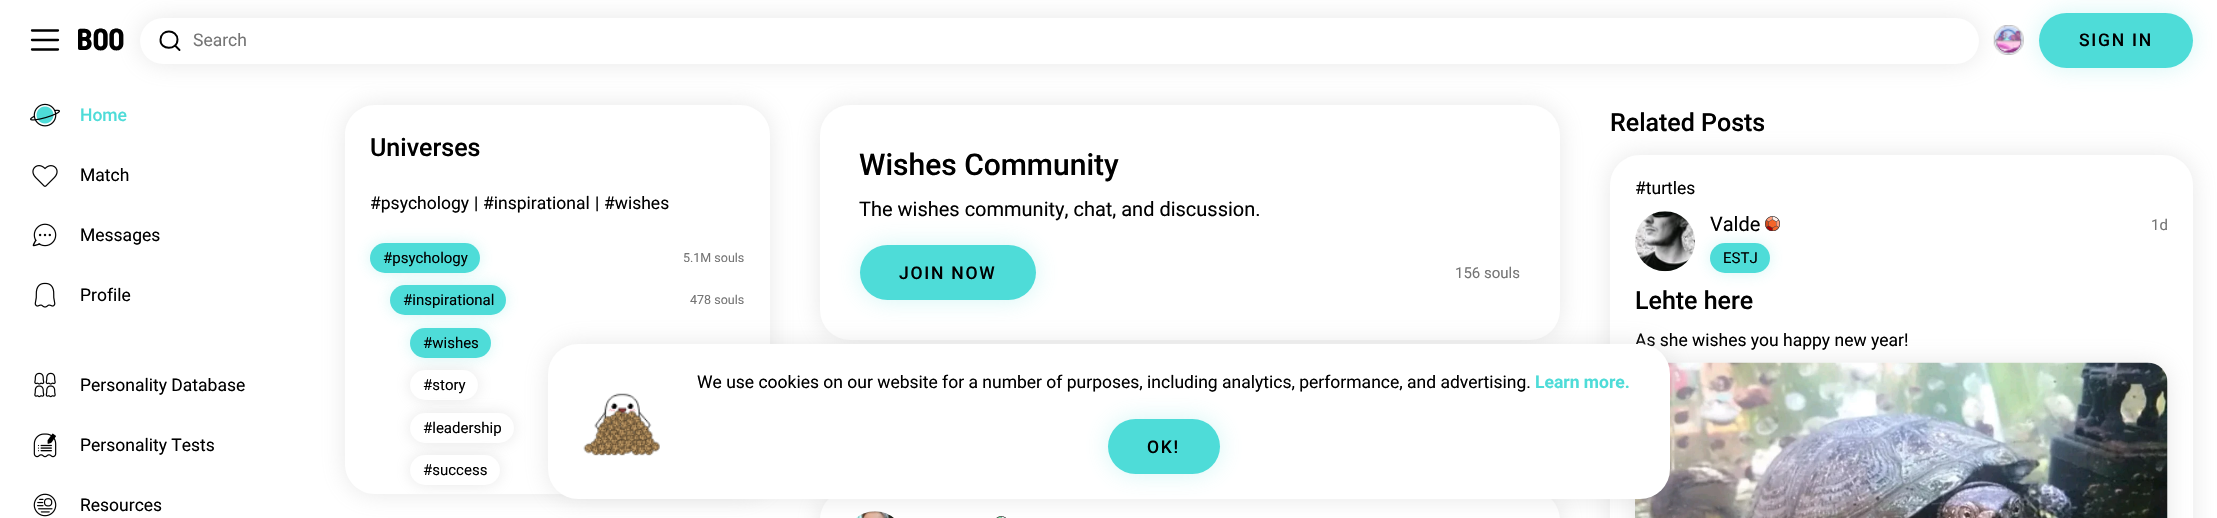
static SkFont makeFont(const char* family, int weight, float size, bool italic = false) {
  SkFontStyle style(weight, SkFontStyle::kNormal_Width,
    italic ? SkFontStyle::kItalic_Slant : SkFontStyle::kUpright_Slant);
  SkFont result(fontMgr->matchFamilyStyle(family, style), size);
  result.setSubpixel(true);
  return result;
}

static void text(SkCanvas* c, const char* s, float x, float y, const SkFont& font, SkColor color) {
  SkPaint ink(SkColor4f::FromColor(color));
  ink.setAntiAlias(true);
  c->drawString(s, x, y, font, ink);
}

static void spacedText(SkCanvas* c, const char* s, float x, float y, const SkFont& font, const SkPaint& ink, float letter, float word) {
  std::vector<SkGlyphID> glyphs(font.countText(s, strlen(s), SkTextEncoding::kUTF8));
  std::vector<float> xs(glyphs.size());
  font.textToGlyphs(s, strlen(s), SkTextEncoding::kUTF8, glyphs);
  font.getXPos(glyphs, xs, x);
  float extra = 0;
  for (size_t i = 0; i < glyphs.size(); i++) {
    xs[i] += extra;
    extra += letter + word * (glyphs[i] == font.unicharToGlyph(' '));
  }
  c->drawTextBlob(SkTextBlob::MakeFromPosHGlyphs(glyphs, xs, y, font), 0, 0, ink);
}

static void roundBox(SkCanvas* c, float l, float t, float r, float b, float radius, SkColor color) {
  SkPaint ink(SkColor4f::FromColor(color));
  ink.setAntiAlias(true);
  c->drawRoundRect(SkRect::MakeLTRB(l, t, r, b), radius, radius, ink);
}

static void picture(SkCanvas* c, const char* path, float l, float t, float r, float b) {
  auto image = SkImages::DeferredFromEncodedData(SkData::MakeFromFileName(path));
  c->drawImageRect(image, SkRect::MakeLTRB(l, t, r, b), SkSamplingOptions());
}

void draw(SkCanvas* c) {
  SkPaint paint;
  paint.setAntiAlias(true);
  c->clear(0xffffffff);
  paint.setStyle(SkPaint::kStroke_Style);
  paint.setStrokeWidth(2.3f);
  paint.setStrokeCap(SkPaint::kRound_Cap);
  paint.setColor(0xff000000);
  c->drawPath(SkPathBuilder().moveTo(32, 30.5f).lineTo(58, 30.5f).moveTo(32, 40).lineTo(58, 40).moveTo(32, 49.5f).lineTo(58, 49.5f).detach(), paint);
  SkFont face1 = makeFont("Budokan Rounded", 700, 30);
  text(c, "Boo", 78, 50, face1, 0xff000000);
  paint.setStyle(SkPaint::kFill_Style);
  paint.setColor(0x409e9e9e);
  paint.setMaskFilter(SkMaskFilter::MakeBlur(kNormal_SkBlurStyle, 12.5f));
  c->drawRoundRect(SkRect::MakeLTRB(140, 18, 1979, 64), 23, 23, paint);
  paint.setMaskFilter(nullptr);
  roundBox(c, 140, 18, 1979, 64, 23, 0xffffffff);
  paint.setStyle(SkPaint::kStroke_Style);
  paint.setStrokeWidth(1.9f);
  paint.setStrokeJoin(SkPaint::kRound_Join);
  paint.setColor(0xff000000);
  c->drawPath(SkPathBuilder().moveTo(179.5f, 50).lineTo(175, 45.5f).moveTo(177.5f, 39.5f).cubicTo(177.5f, 50.5f, 160, 50.5f, 160.5f, 39.5f).cubicTo(161, 28.5f, 177, 29, 177.5f, 39.5f).close().detach(), paint);
  SkFont face2 = makeFont("Roboto", 400, 17.5f);
  text(c, "Search", 193, 46, face2, 0xff757575);
  paint.setStyle(SkPaint::kFill_Style);
  paint.setColor(0x404edcd8);
  paint.setMaskFilter(SkMaskFilter::MakeBlur(kNormal_SkBlurStyle, 12.5f));
  c->drawRoundRect(SkRect::MakeLTRB(2039, 13, 2193, 68), 27.5f, 27.5f, paint);
  paint.setMaskFilter(nullptr);
  picture(c, "img_01.png", 1993, 25, 2024, 55);
  roundBox(c, 2039, 13, 2193, 68, 27.5f, 0xff4edcd8);
  SkFont face3 = makeFont("Roboto", 500, 17.5f);
  paint.setColor(0xff000000);
  spacedText(c, "SIGN IN", 2079, 46, face3, paint, 1.75f, 0);
  picture(c, "img_02.png", 30, 103, 60, 127);
  text(c, "Home", 80, 121, face3, 0xff4edcd8);
  picture(c, "img_03.png", 32, 165, 58, 187);
  text(c, "Match", 80, 181, face2, 0xff000000);
  picture(c, "img_04.png", 32, 223, 57, 247);
  text(c, "Messages", 80, 241, face2, 0xff000000);
  picture(c, "img_05.png", 34, 282, 56, 308);
  text(c, "Profile", 80, 301, face2, 0xff000000);
  picture(c, "img_06.png", 34, 372, 56, 398);
  text(c, "Personality Database", 80, 391, face2, 0xff000000);
  picture(c, "img_07.png", 33, 433, 57, 458);
  text(c, "Personality Tests", 80, 451, face2, 0xff000000);
  picture(c, "img_08.png", 33, 493, 57, 517);
  text(c, "Resources", 80, 511, face2, 0xff000000);
  c->save();
  c->clipPath(SkPathBuilder(SkPathFillType::kEvenOdd).moveTo(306, 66).lineTo(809, 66).lineTo(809, 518).lineTo(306, 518).close().moveTo(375, 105).lineTo(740, 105).cubicTo(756.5f, 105, 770, 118.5f, 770, 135).lineTo(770, 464).cubicTo(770, 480.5f, 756.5f, 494, 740, 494).lineTo(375, 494).cubicTo(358.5f, 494, 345, 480.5f, 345, 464).lineTo(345, 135).cubicTo(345, 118.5f, 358.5f, 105, 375, 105).close().detach(), true);
  paint.setColor(0x409e9e9e);
  paint.setMaskFilter(SkMaskFilter::MakeBlur(kNormal_SkBlurStyle, 12.5f));
  c->drawRoundRect(SkRect::MakeLTRB(345, 105, 770, 494), 30, 30, paint);
  paint.setMaskFilter(nullptr);
  c->restore();
  SkFont face4 = makeFont("Roboto", 500, 25);
  text(c, "Universes", 370, 156, face4, 0xff000000);
  text(c, "#psychology", 370, 209, face2, 0xff000000);
  text(c, "|", 474, 209, face2, 0xff000000);
  text(c, "#inspirational", 483, 209, face2, 0xff000000);
  text(c, "|", 595, 209, face2, 0xff000000);
  text(c, "#wishes", 604, 209, face2, 0xff000000);
  paint.setColor(0x404edcd8);
  paint.setMaskFilter(SkMaskFilter::MakeBlur(kNormal_SkBlurStyle, 7.5f));
  c->drawRoundRect(SkRect::MakeLTRB(370, 243, 480, 273), 15, 15, paint);
  paint.setMaskFilter(nullptr);
  roundBox(c, 370, 243, 480, 273, 15, 0xff4edcd8);
  SkFont face5 = makeFont("Roboto", 400, 15);
  text(c, "#psychology", 383, 263, face5, 0xff000000);
  SkFont face6 = makeFont("Roboto", 400, 12.5f);
  text(c, "5.1M souls", 683, 262, face6, 0xff757575);
  paint.setMaskFilter(SkMaskFilter::MakeBlur(kNormal_SkBlurStyle, 7.5f));
  c->drawRoundRect(SkRect::MakeLTRB(390, 285, 506, 315), 15, 15, paint);
  paint.setMaskFilter(nullptr);
  roundBox(c, 390, 285, 506, 315, 15, 0xff4edcd8);
  text(c, "#inspirational", 403, 305, face5, 0xff000000);
  text(c, "478 souls", 690, 304, face6, 0xff757575);
  paint.setMaskFilter(SkMaskFilter::MakeBlur(kNormal_SkBlurStyle, 7.5f));
  c->drawRoundRect(SkRect::MakeLTRB(410, 328, 491, 358), 15, 15, paint);
  paint.setMaskFilter(nullptr);
  roundBox(c, 410, 328, 491, 358, 15, 0xff4edcd8);
  text(c, "#wishes", 423, 348, face5, 0xff000000);
  paint.setColor(0x409e9e9e);
  paint.setMaskFilter(SkMaskFilter::MakeBlur(kNormal_SkBlurStyle, 7.5f));
  c->drawRoundRect(SkRect::MakeLTRB(410, 370, 478, 400), 15, 15, paint);
  paint.setMaskFilter(nullptr);
  roundBox(c, 410, 370, 478, 400, 15, 0xffffffff);
  text(c, "#story", 423, 390, face5, 0xff000000);
  paint.setMaskFilter(SkMaskFilter::MakeBlur(kNormal_SkBlurStyle, 7.5f));
  c->drawRoundRect(SkRect::MakeLTRB(410, 413, 514, 443), 15, 15, paint);
  paint.setMaskFilter(nullptr);
  roundBox(c, 410, 413, 514, 443, 15, 0xffffffff);
  text(c, "#leadership", 423, 433, face5, 0xff000000);
  c->save();
  c->clipRect(SkRect::MakeLTRB(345, 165, 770, 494));
  paint.setMaskFilter(SkMaskFilter::MakeBlur(kNormal_SkBlurStyle, 7.5f));
  c->drawRoundRect(SkRect::MakeLTRB(410, 455, 500, 485), 15, 15, paint);
  paint.setMaskFilter(nullptr);
  c->restore();
  roundBox(c, 410, 455, 500, 485, 15, 0xffffffff);
  text(c, "#success", 423, 475, face5, 0xff000000);
  paint.setMaskFilter(SkMaskFilter::MakeBlur(kNormal_SkBlurStyle, 12.5f));
  c->drawRoundRect(SkRect::MakeLTRB(820, 105, 1560, 340), 30, 30, paint);
  paint.setMaskFilter(nullptr);
  roundBox(c, 820, 105, 1560, 340, 30, 0xffffffff);
  SkFont face7 = makeFont("Roboto", 500, 30);
  text(c, "Wishes Community", 859, 175, face7, 0xff000000);
  SkFont face8 = makeFont("Roboto", 400, 20);
  text(c, "The wishes community, chat, and discussion.", 859, 216, face8, 0xff000000);
  paint.setColor(0x404edcd8);
  paint.setMaskFilter(SkMaskFilter::MakeBlur(kNormal_SkBlurStyle, 12.5f));
  c->drawRoundRect(SkRect::MakeLTRB(860, 245, 1036, 300), 27.5f, 27.5f, paint);
  paint.setMaskFilter(nullptr);
  roundBox(c, 860, 245, 1036, 300, 27.5f, 0xff4edcd8);
  paint.setColor(0xff000000);
  spacedText(c, "JOIN NOW", 899, 279, face3, paint, 1.75f, 0);
  text(c, "156 souls", 1455, 278, face5, 0xff757575);
  paint.setColor(0x409e9e9e);
  paint.setMaskFilter(SkMaskFilter::MakeBlur(kNormal_SkBlurStyle, 12.5f));
  c->drawRoundRect(SkRect::MakeLTRB(820, 490, 1560, 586), 30, 30, paint);
  paint.setMaskFilter(nullptr);
  paint.setColor(0xffffffff);
  c->drawPath(SkPathBuilder().moveTo(850, 490).lineTo(1530, 490).cubicTo(1546.5f, 490, 1560, 503.5f, 1560, 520).lineTo(1560, 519).lineTo(820, 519).lineTo(820, 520).cubicTo(820, 503.5f, 833.5f, 490, 850, 490).close().detach(), paint);
  picture(c, "img_09.png", 856, 511, 894, 518);
  picture(c, "img_10.png", 996, 516, 1006, 518);
  text(c, "Related Posts", 1610, 131, face4, 0xff000000);
  paint.setColor(0x409e9e9e);
  paint.setMaskFilter(SkMaskFilter::MakeBlur(kNormal_SkBlurStyle, 12.5f));
  c->drawRoundRect(SkRect::MakeLTRB(1610, 155, 2193, 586), 30, 30, paint);
  paint.setMaskFilter(nullptr);
  paint.setColor(0xffffffff);
  c->drawPath(SkPathBuilder().moveTo(1640, 155).lineTo(2163, 155).cubicTo(2179.5f, 155, 2193, 168.5f, 2193, 185).lineTo(2193, 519).lineTo(1610, 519).lineTo(1610, 185).cubicTo(1610, 168.5f, 1623.5f, 155, 1640, 155).close().detach(), paint);
  text(c, "#turtles", 1635, 194, face2, 0xff000000);
  paint.setColor(0x404edcd8);
  paint.setMaskFilter(SkMaskFilter::MakeBlur(kNormal_SkBlurStyle, 7.5f));
  c->drawRoundRect(SkRect::MakeLTRB(1710, 243, 1770, 273), 15, 15, paint);
  paint.setMaskFilter(nullptr);
  picture(c, "img_11.png", 1635, 211, 1695, 272);
  text(c, "Valde", 1710, 231, face8, 0xff000000);
  picture(c, "img_12.png", 1765, 216, 1780, 231);
  text(c, "1d", 2151, 230, face5, 0xff757575);
  roundBox(c, 1710, 243, 1770, 273, 15, 0xff4edcd8);
  text(c, "ESTJ", 1723, 263, face5, 0xff000000);
  text(c, "Lehte here", 1635, 309, face4, 0xff000000);
  paint.setColor(0x409e9e9e);
  paint.setMaskFilter(SkMaskFilter::MakeBlur(kNormal_SkBlurStyle, 12.5f));
  c->drawRoundRect(SkRect::MakeLTRB(1635, 363, 2168, 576), 20, 20, paint);
  paint.setMaskFilter(nullptr);
  picture(c, "img_13.png", 1635, 362, 2168, 518);
  text(c, "As she wishes you happy new year!", 1635, 346, face2, 0xff000000);
  paint.setMaskFilter(SkMaskFilter::MakeBlur(kNormal_SkBlurStyle, 12.5f));
  c->drawRoundRect(SkRect::MakeLTRB(548, 344, 1670, 499), 30, 30, paint);
  paint.setMaskFilter(nullptr);
  roundBox(c, 548, 344, 1670, 499, 30, 0xffffffff);
  picture(c, "img_14.png", 583, 393, 660, 456);
  text(c, "We use cookies on our website for a number of purposes, including analytics, performance, and advertising.", 697, 388, face2, 0xff000000);
  SkFont face9 = makeFont("Roboto", 700, 17.5f);
  text(c, "Learn more.", 1535, 388, face9, 0xff4edcd8);
  paint.setColor(0x404edcd8);
  paint.setMaskFilter(SkMaskFilter::MakeBlur(kNormal_SkBlurStyle, 12.5f));
  c->drawRoundRect(SkRect::MakeLTRB(1108, 419, 1220, 474), 27.5f, 27.5f, paint);
  paint.setMaskFilter(nullptr);
  roundBox(c, 1108, 419, 1220, 474, 27.5f, 0xff4edcd8);
  paint.setColor(0xff000000);
  spacedText(c, "OK!", 1147, 453, face3, paint, 1.75f, 0);
}
